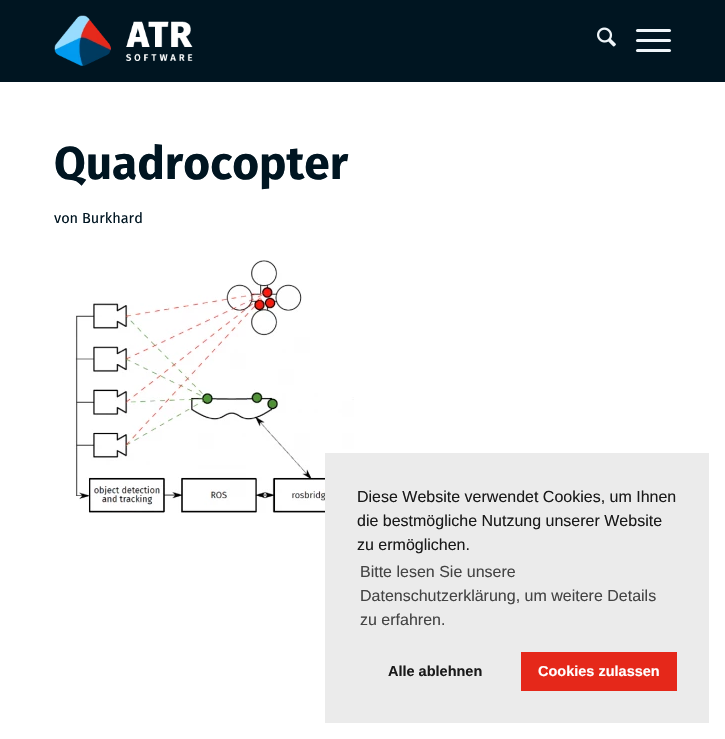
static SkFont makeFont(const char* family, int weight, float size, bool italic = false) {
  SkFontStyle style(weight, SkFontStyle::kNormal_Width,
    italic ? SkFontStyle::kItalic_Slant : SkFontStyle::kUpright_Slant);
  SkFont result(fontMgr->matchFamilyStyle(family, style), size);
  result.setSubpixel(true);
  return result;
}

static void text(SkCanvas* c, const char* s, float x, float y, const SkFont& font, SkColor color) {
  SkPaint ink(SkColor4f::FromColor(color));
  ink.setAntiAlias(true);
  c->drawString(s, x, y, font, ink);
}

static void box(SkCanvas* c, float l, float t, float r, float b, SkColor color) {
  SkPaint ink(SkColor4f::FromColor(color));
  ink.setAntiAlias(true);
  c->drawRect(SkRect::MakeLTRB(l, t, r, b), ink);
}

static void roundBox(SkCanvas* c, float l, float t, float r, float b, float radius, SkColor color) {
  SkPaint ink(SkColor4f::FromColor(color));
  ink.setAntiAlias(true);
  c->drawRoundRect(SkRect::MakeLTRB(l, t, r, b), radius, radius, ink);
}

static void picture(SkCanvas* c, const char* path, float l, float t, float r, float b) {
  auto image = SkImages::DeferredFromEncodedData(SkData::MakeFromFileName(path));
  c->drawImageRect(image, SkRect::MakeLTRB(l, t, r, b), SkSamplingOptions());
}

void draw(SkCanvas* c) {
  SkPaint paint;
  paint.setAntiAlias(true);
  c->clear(0xffffffff);
  box(c, 0, 0, 725, 82, 0xff001521);
  picture(c, "img_01.png", 54, 15, 193, 66);
  picture(c, "img_02.png", 597, 27, 616, 47);
  roundBox(c, 636, 39, 671, 42, 1.5f, 0xffeff5f9);
  roundBox(c, 636, 29, 671, 32, 1.5f, 0xffeff5f9);
  roundBox(c, 636, 49, 671, 52, 1.5f, 0xffeff5f9);
  SkFont face1 = makeFont("Fira Sans", 700, 46);
  text(c, "Quadrocopter", 54, 179, face1, 0xff001521);
  SkFont face2 = makeFont("Fira Sans", 400, 14.5f);
  text(c, "von Burkhard", 54, 223, face2, 0xff001521);
  picture(c, "img_03.png", 74, 260, 354, 513);
  box(c, 325, 453, 709, 723, 0xffebebeb);
  SkFont face3 = makeFont("Liberation Sans", 400, 16);
  text(c, "Diese Website verwendet Cookies, um Ihnen", 357, 502, face3, 0xff1a1a1a);
  text(c, "die bestmögliche Nutzung unserer Website", 357, 526, face3, 0xff1a1a1a);
  text(c, "zu ermöglichen.", 357, 550, face3, 0xff1a1a1a);
  text(c, "Bitte lesen Sie unsere", 360, 577, face3, 0xff444444);
  text(c, "Datenschutzerklärung, um weitere Details", 360, 601, face3, 0xff444444);
  text(c, "zu erfahren.", 360, 625, face3, 0xff444444);
  SkFont face4 = makeFont("Liberation Sans", 700, 14.5f);
  text(c, "Alle ablehnen", 388, 676, face4, 0xff1a1a1a);
  box(c, 521, 652, 677, 691, 0xffe5281a);
  text(c, "Cookies zulassen", 538, 676, face4, 0xffffffff);
}
